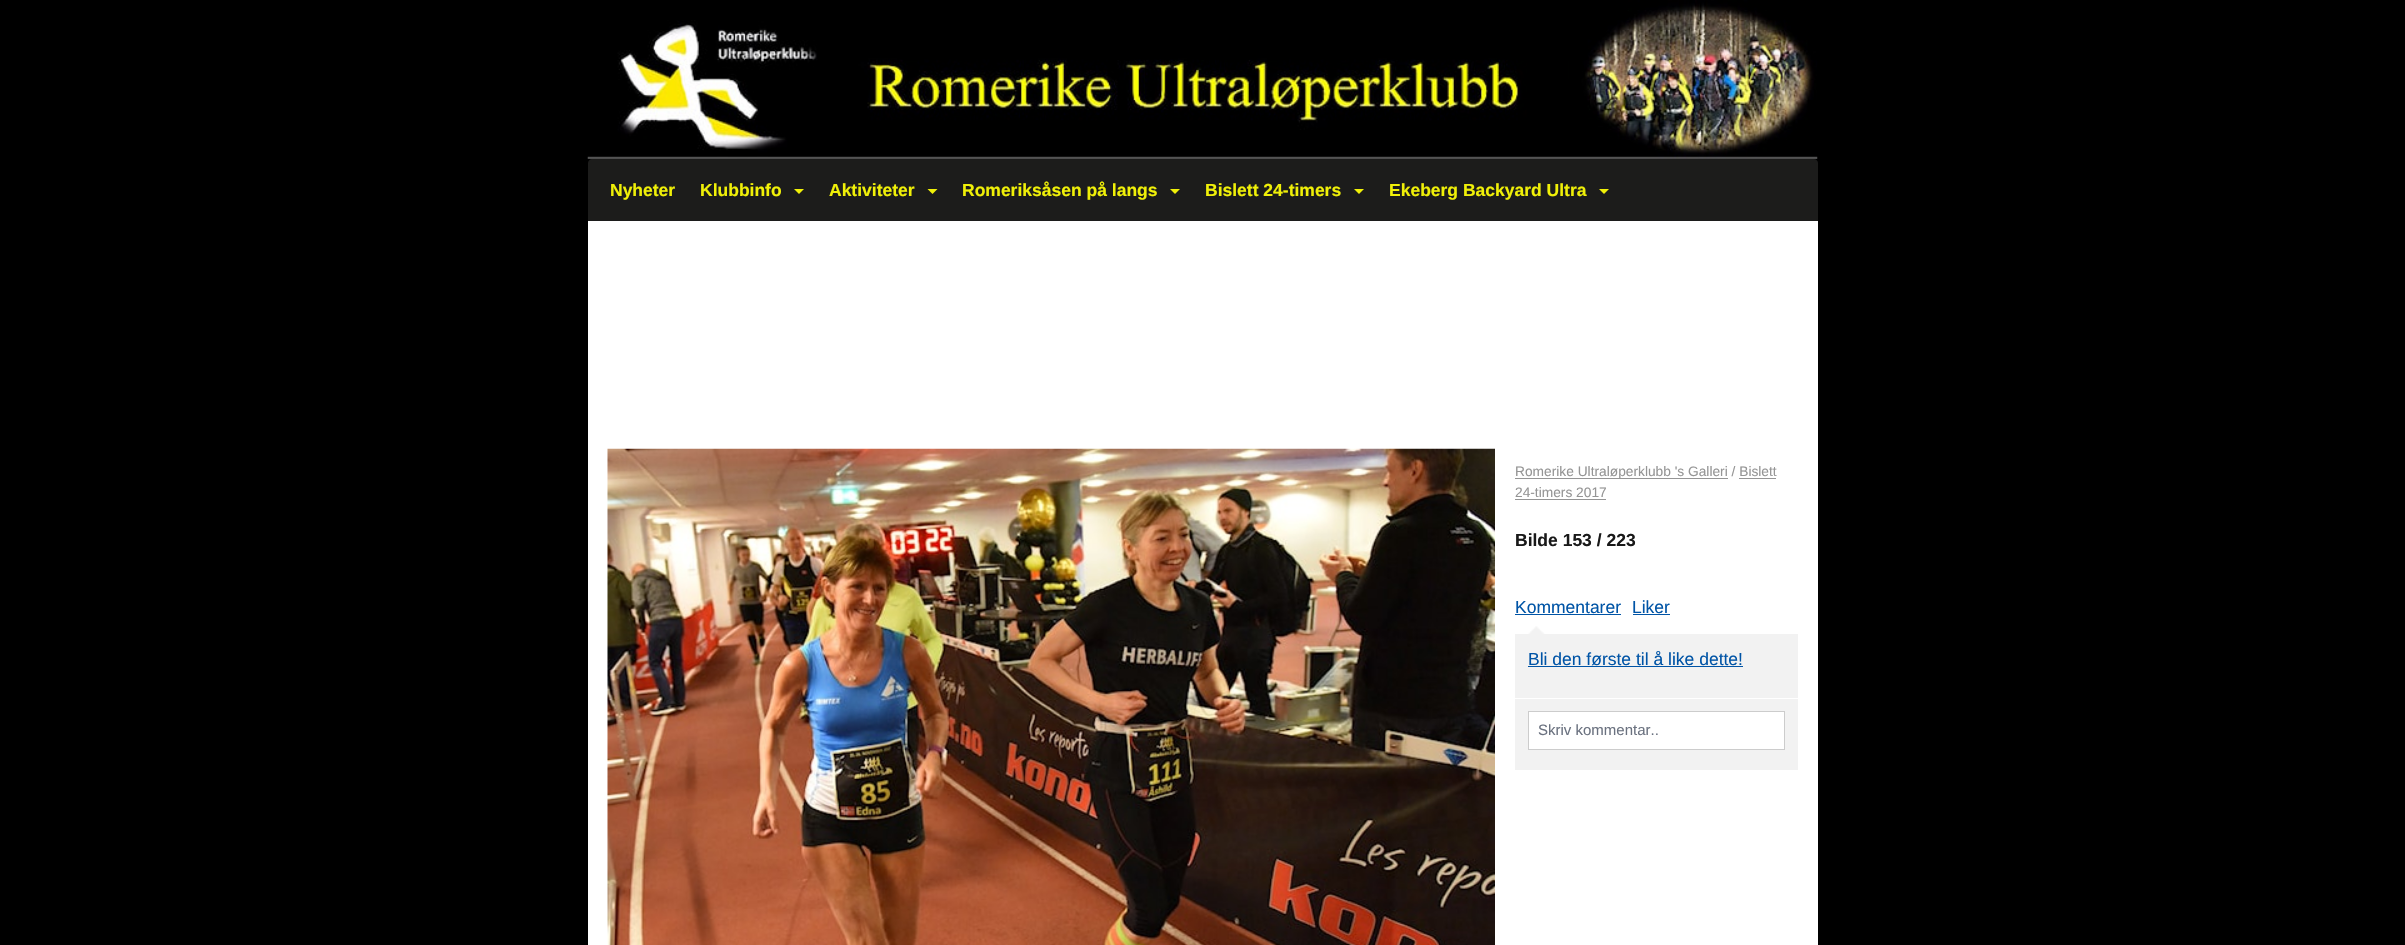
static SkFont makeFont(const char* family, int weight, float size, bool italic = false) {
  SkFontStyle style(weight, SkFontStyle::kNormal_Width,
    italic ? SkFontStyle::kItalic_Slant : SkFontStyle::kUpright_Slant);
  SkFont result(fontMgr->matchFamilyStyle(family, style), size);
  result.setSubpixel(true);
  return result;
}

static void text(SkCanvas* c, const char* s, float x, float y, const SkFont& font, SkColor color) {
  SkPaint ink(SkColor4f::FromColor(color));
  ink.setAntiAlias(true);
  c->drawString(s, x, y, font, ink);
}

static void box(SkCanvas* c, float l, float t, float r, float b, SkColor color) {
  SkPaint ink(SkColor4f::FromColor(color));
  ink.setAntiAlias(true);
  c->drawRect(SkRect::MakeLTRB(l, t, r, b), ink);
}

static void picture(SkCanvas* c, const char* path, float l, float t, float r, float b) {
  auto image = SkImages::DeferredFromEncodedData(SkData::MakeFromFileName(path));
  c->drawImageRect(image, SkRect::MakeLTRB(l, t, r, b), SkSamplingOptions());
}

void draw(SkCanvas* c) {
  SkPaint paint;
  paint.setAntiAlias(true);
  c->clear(0xff000000);
  picture(c, "img_01.png", 587, 0, 1818, 159);
  paint.setColor(0xff1c1c1b);
  c->drawPath(SkPathBuilder().moveTo(592, 159).lineTo(1814, 159).cubicTo(1816, 159, 1818, 161, 1818, 163).lineTo(1818, 221).lineTo(588, 221).lineTo(588, 163).cubicTo(588, 161, 590, 159, 592, 159).close().detach(), paint);
  SkFont face1 = makeFont("Liberation Sans", 700, 17.5f);
  text(c, "Nyheter", 610, 196, face1, 0xfff0f008);
  text(c, "Klubbinfo", 700, 196, face1, 0xfff0f008);
  paint.setColor(0xfff0f008);
  c->drawPath(SkPathBuilder().moveTo(794, 189).lineTo(804, 189).lineTo(799, 194).close().detach(), paint);
  text(c, "Aktiviteter", 829, 196, face1, 0xfff0f008);
  c->drawPath(SkPathBuilder().moveTo(927.5f, 189).lineTo(937.5f, 189).lineTo(932.5f, 194).close().detach(), paint);
  text(c, "Romeriksåsen på langs", 962, 196, face1, 0xfff0f008);
  c->drawPath(SkPathBuilder().moveTo(1170, 189).lineTo(1180, 189).lineTo(1175, 194).close().detach(), paint);
  text(c, "Bislett 24-timers", 1205, 196, face1, 0xfff0f008);
  c->drawPath(SkPathBuilder().moveTo(1354, 189).lineTo(1364, 189).lineTo(1359, 194).close().detach(), paint);
  text(c, "Ekeberg Backyard Ultra", 1389, 196, face1, 0xfff0f008);
  c->drawPath(SkPathBuilder().moveTo(1599, 189).lineTo(1609, 189).lineTo(1604, 194).close().detach(), paint);
  box(c, 588, 221, 1818, 945, 0xffffffff);
  picture(c, "img_02.png", 607, 448, 1495, 945);
  box(c, 1515, 478, 1728, 479, 0xff959595);
  SkFont face2 = makeFont("Liberation Sans", 400, 13.75f);
  text(c, "Romerike Ultraløperklubb 's Galleri / Bislett", 1515, 476, face2, 0xff959595);
  text(c, "24-timers 2017", 1515, 497, face2, 0xff959595);
  box(c, 1739, 478, 1776, 479, 0xff959595);
  box(c, 1515, 499, 1606, 500, 0xff959595);
  text(c, "Bilde 153 / 223", 1515, 546, face1, 0xff191919);
  SkFont face3 = makeFont("Liberation Sans", 400, 17.5f);
  text(c, "Kommentarer", 1515, 613, face3, 0xff0054a6);
  box(c, 1515, 614, 1621, 615, 0xff0054a6);
  text(c, "Liker", 1632, 613, face3, 0xff0054a6);
  box(c, 1633, 614, 1670, 615, 0xff0054a6);
  picture(c, "img_03.png", 1528, 626, 1545, 634);
  box(c, 1515, 634, 1798, 698, 0xfff2f2f2);
  text(c, "Bli den første til å like dette!", 1528, 665, face3, 0xff0054a6);
  box(c, 1528, 666, 1743, 667, 0xff0054a6);
  box(c, 1515, 699, 1798, 770, 0xfff2f2f2);
  paint.setColor(0xffffffff);
  c->drawRect(SkRect::MakeLTRB(1528.5f, 711.5f, 1784.5f, 749.5f), paint);
  paint.setStyle(SkPaint::kStroke_Style);
  paint.setStrokeWidth(1);
  paint.setColor(0xffcccccc);
  c->drawRect(SkRect::MakeLTRB(1528.5f, 711.5f, 1784.5f, 749.5f), paint);
  SkFont face4 = makeFont("Liberation Sans", 400, 15);
  text(c, "Skriv kommentar..", 1538, 735, face4, 0xff6b7280);
}
